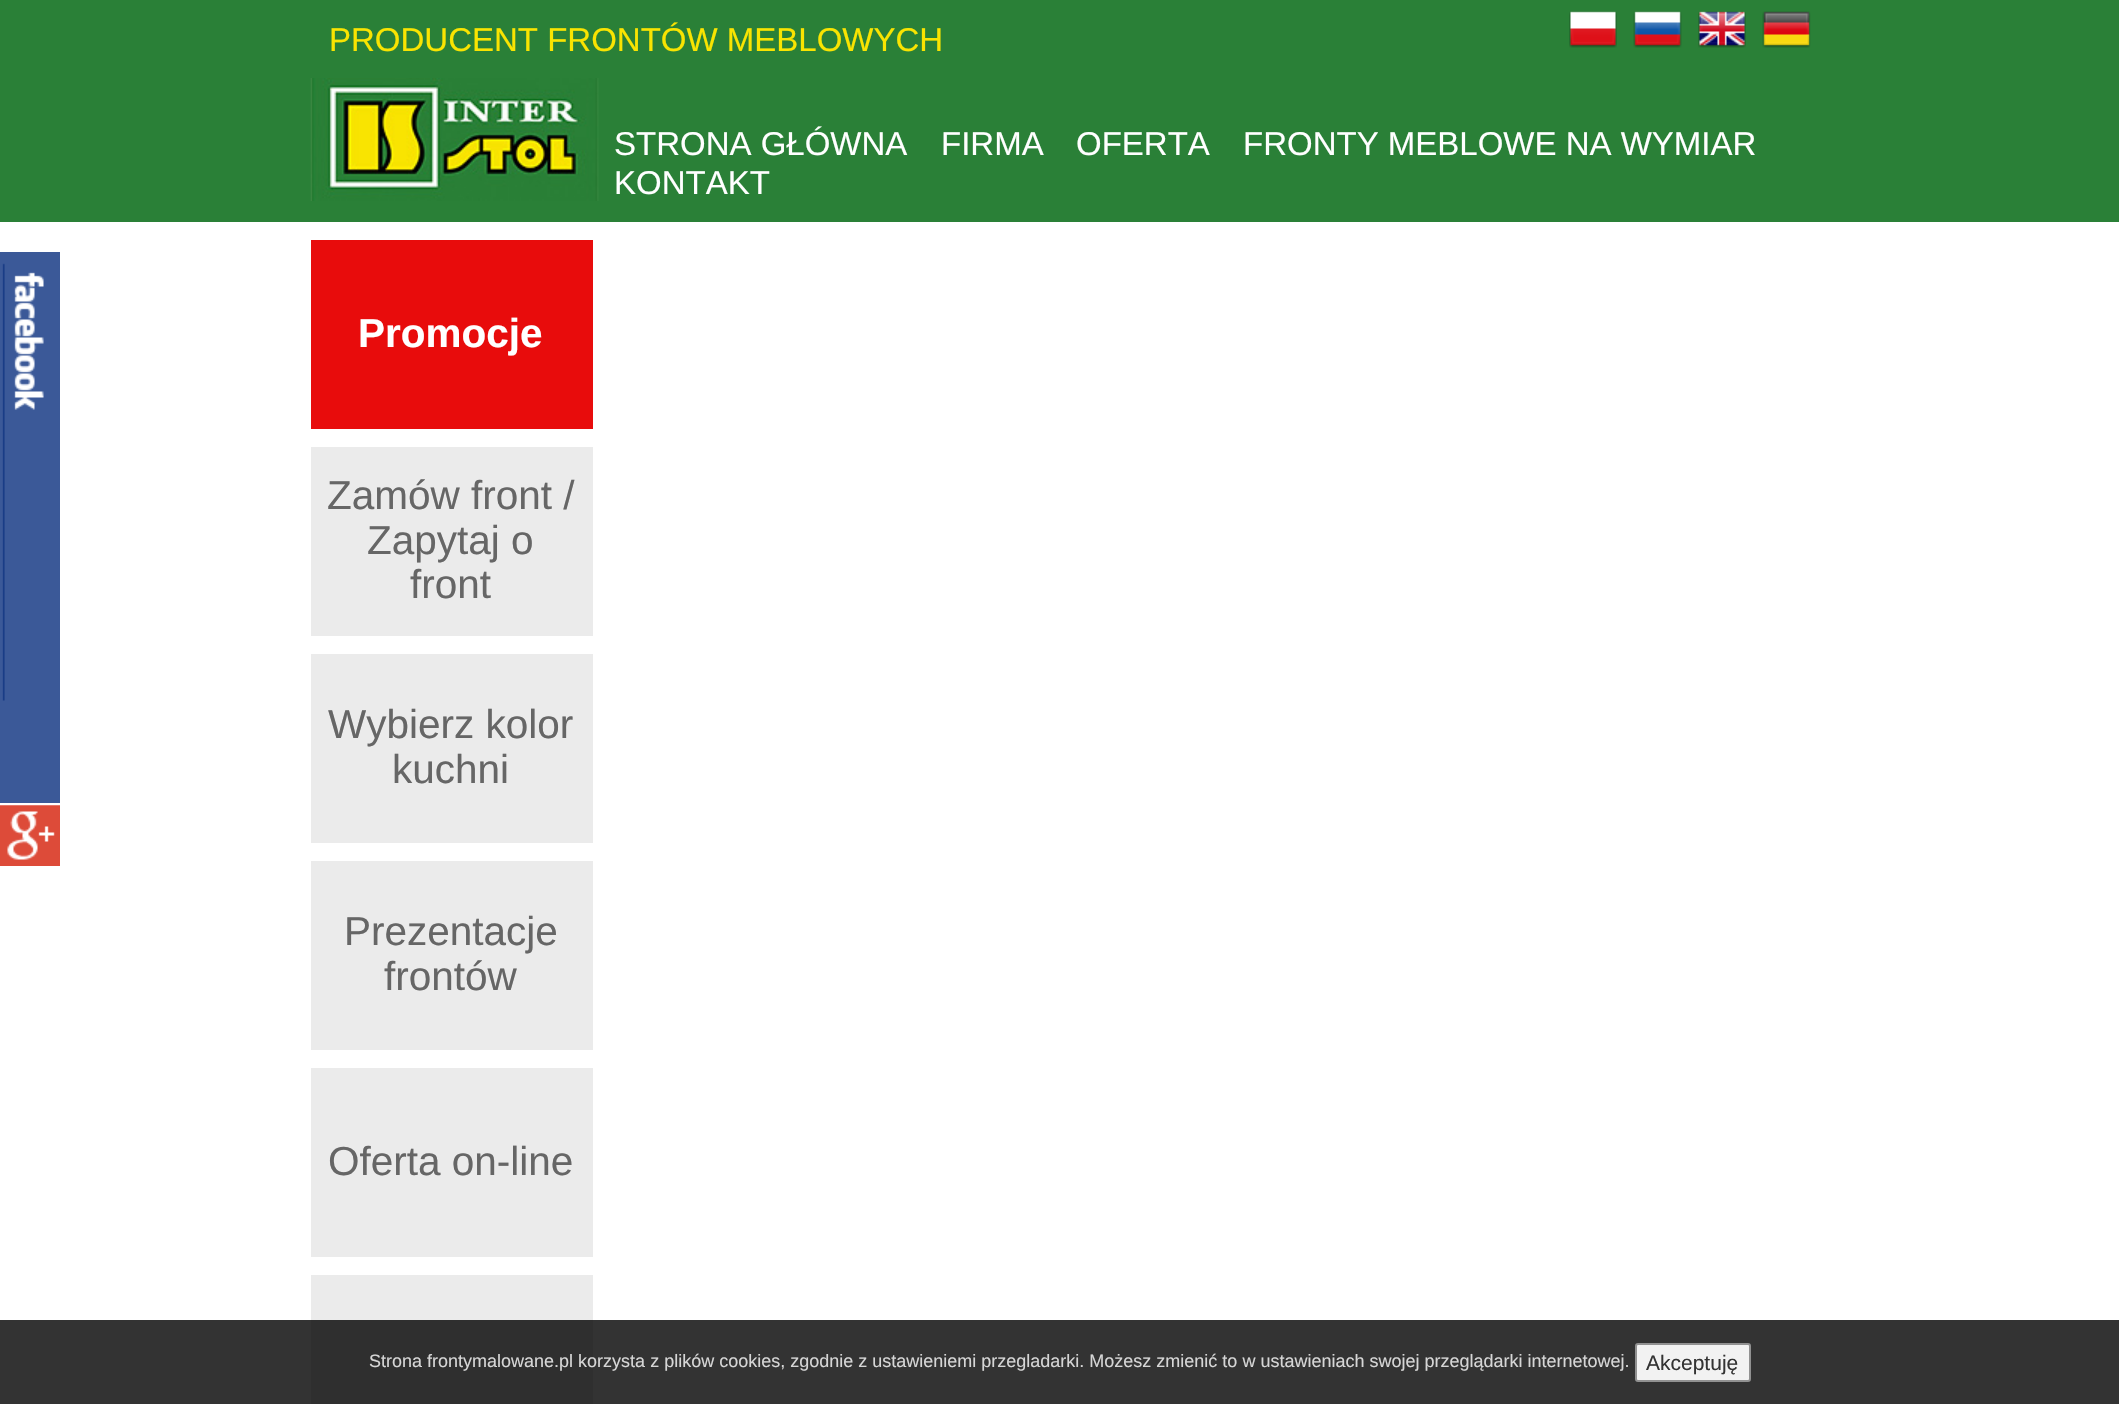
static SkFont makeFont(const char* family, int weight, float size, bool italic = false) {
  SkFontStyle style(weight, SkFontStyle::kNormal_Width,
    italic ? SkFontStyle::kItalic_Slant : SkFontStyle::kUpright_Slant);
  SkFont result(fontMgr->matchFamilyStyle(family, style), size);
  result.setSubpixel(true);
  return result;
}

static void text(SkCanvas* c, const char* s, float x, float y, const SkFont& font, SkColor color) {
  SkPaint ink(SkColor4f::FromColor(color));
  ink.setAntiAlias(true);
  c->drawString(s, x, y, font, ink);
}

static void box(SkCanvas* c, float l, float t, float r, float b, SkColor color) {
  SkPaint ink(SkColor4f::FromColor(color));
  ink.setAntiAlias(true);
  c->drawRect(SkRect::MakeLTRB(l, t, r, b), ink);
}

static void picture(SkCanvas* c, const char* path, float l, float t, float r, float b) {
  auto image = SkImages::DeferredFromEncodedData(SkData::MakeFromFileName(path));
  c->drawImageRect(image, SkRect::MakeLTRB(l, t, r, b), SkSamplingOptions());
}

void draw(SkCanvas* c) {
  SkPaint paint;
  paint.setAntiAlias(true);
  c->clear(0xffffffff);
  box(c, 0, 0, 2119, 222, 0xff2a8037);
  SkFont face1 = makeFont("Liberation Sans", 400, 33);
  text(c, "PRODUCENT FRONTÓW MEBLOWYCH", 329, 51, face1, 0xfff9e401);
  picture(c, "img_01.png", 1569, 11, 1617, 48);
  picture(c, "img_02.png", 1633, 11, 1682, 48);
  picture(c, "img_03.png", 1698, 11, 1746, 48);
  picture(c, "img_04.png", 1762, 11, 1811, 48);
  picture(c, "img_05.png", 310, 78, 599, 201);
  text(c, "STRONA GŁÓWNA", 614, 155, face1, 0xffffffff);
  text(c, "FIRMA", 941, 155, face1, 0xffffffff);
  text(c, "OFERTA", 1076, 155, face1, 0xffffffff);
  text(c, "FRONTY MEBLOWE NA WYMIAR", 1243, 155, face1, 0xffffffff);
  text(c, "KONTAKT", 614, 194, face1, 0xffffffff);
  picture(c, "img_06.png", 0, 254, 58, 801);
  paint.setStyle(SkPaint::kStroke_Style);
  paint.setStrokeWidth(2);
  paint.setColor(0xff3b5998);
  c->drawRect(SkRect::MakeLTRB(-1, 253, 59, 802), paint);
  box(c, 311, 240, 593, 429, 0xffe80c0c);
  SkFont face2 = makeFont("Liberation Sans", 700, 40.5f);
  text(c, "Promocje", 358, 347, face2, 0xffffffff);
  box(c, 311, 447, 593, 636, 0xffebebeb);
  SkFont face3 = makeFont("Liberation Sans", 400, 40.5f);
  text(c, "Zamów front /", 327, 509, face3, 0xff666666);
  text(c, "Zapytaj o", 367, 554, face3, 0xff666666);
  text(c, "front", 410, 598, face3, 0xff666666);
  box(c, 311, 654, 593, 843, 0xffebebeb);
  text(c, "Wybierz kolor", 328, 738, face3, 0xff666666);
  text(c, "kuchni", 392, 783, face3, 0xff666666);
  box(c, 311, 861, 593, 1050, 0xffebebeb);
  text(c, "Prezentacje", 344, 945, face3, 0xff666666);
  text(c, "frontów", 384, 990, face3, 0xff666666);
  box(c, 311, 1068, 593, 1257, 0xffebebeb);
  text(c, "Oferta on-line", 328, 1175, face3, 0xff666666);
  box(c, 311, 1275, 593, 1404, 0xffebebeb);
  box(c, 0, 860, 60, 866, 0xffdd4b39);
  picture(c, "img_07.png", 0, 806, 60, 860);
  box(c, 0, 805, 60, 806, 0xffe5776a);
  box(c, 0, 1320, 2119, 1404, 0xcc000000);
  SkFont face4 = makeFont("Liberation Sans", 400, 18);
  text(c, "Strona frontymalowane.pl korzysta z plików cookies, zgodnie z ustawieniemi przegladarki. Możesz zmienić to w ustawieniach swojej przeglądarki internetowej.", 369, 1367, face4, 0xffd6d6d6);
  paint.setStyle(SkPaint::kFill_Style);
  paint.setColor(0xfff2f2f2);
  c->drawRoundRect(SkRect::MakeLTRB(1636, 1344, 1750, 1381), 2, 2, paint);
  paint.setStyle(SkPaint::kStroke_Style);
  paint.setColor(0xff919191);
  c->drawRoundRect(SkRect::MakeLTRB(1636, 1344, 1750, 1381), 2, 2, paint);
  SkFont face5 = makeFont("Liberation Sans", 400, 21);
  text(c, "Akceptuję", 1646, 1370, face5, 0xff333333);
}
